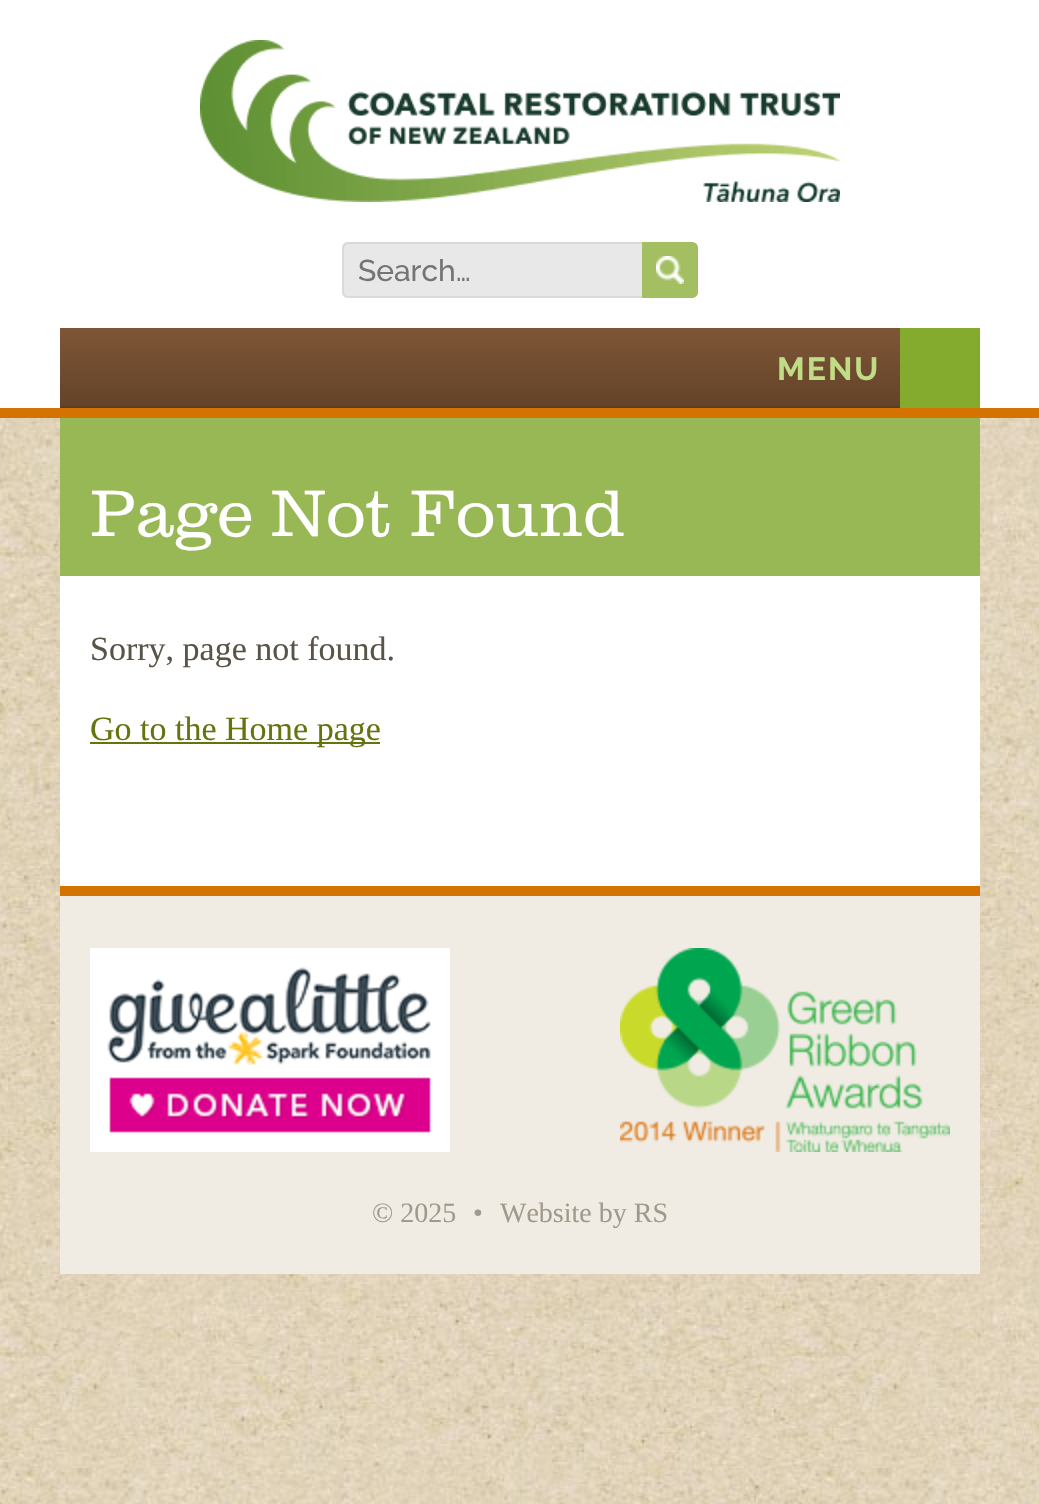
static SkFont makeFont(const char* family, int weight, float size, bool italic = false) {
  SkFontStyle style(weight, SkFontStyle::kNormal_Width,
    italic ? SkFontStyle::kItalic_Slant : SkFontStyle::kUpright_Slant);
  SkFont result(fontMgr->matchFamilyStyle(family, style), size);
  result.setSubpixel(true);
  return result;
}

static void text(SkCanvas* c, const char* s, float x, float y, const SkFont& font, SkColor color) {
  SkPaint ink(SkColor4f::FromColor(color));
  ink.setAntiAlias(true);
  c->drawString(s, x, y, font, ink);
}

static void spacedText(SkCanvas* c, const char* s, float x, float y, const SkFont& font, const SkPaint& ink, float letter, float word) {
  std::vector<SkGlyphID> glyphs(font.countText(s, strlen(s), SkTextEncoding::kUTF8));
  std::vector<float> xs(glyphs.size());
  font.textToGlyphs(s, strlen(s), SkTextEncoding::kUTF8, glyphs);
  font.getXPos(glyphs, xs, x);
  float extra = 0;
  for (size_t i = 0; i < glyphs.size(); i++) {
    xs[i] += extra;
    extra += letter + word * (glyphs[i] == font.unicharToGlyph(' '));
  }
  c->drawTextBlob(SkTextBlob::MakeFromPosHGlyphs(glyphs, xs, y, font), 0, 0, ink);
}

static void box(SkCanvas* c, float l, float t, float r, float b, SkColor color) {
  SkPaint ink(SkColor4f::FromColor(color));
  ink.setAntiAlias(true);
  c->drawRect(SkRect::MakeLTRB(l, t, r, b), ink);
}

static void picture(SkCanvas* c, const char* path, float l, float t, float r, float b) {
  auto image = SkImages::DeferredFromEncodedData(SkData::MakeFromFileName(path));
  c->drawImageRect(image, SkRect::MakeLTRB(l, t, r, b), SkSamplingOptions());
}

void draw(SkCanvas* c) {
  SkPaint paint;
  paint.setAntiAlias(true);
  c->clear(0xffffffff);
  picture(c, "img_01.png", 0, 418, 1039, 1504);
  box(c, 0, 408, 1039, 418, 0xffd47300);
  picture(c, "img_02.png", 200, 40, 840, 202);
  paint.setColor(0xffe8e8e8);
  c->drawPath(SkPathBuilder().moveTo(348, 242).lineTo(642, 242).lineTo(642, 298).lineTo(348, 298).cubicTo(344.5f, 298, 342, 295.5f, 342, 292).lineTo(342, 248).cubicTo(342, 244.5f, 344.5f, 242, 348, 242).close().detach(), paint);
  paint.setColor(0xffdadada);
  c->drawPath(SkPathBuilder(SkPathFillType::kEvenOdd).moveTo(348, 242).lineTo(642, 242).lineTo(642, 298).lineTo(348, 298).cubicTo(345, 298, 342, 295, 342, 292).lineTo(342, 248).cubicTo(342, 245, 345, 242, 348, 242).close().moveTo(348, 244).lineTo(642, 244).lineTo(642, 296).lineTo(348, 296).cubicTo(346, 296, 344, 294, 344, 292).lineTo(344, 248).cubicTo(344, 246, 346, 244, 348, 244).close().detach(), paint);
  SkFont face1 = makeFont("Raleway", 500, 30);
  text(c, "Search…", 358, 281, face1, 0xff757575);
  paint.setColor(0xffa3bf61);
  c->drawPath(SkPathBuilder().moveTo(642, 242).lineTo(692, 242).cubicTo(695.5f, 242, 698, 244.5f, 698, 248).lineTo(698, 292).cubicTo(698, 295.5f, 695.5f, 298, 692, 298).lineTo(642, 298).close().detach(), paint);
  picture(c, "img_03.png", 656, 256, 684, 284);
  {
    const SkColor colors[] = {0xff7e5637, 0xff634328};
    const float stops[] = {0, 1};
    const SkPoint ends[] = {{520, 328}, {520, 408}};
    paint.setShader(SkGradientShader::MakeLinear(ends, colors, stops, 2, SkTileMode::kClamp));
    paint.setAlpha(255);
  }
  c->drawRect(SkRect::MakeLTRB(60, 328, 900, 406), paint);
  box(c, 60, 406, 900, 408, 0xff5a3c24);
  SkFont face2 = makeFont("Raleway", 700, 32);
  paint.setShader(nullptr);
  paint.setColor(0xffc1dc87);
  spacedText(c, "MENU", 777, 380, face2, paint, 2, 0);
  box(c, 900, 328, 980, 408, 0xff84ab2e);
  box(c, 60, 418, 980, 576, 0xff98b755);
  SkFont face3 = makeFont("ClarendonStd", 300, 68);
  text(c, "Page Not Found", 90, 536, face3, 0xffffffff);
  box(c, 60, 576, 980, 886, 0xffffffff);
  SkFont face4 = makeFont("Liberation Serif", 400, 34);
  text(c, "Sorry, page not found.", 90, 660, face4, 0xff5a5448);
  box(c, 90, 742, 380, 744, 0xff67730e);
  text(c, "Go to the Home page", 90, 740, face4, 0xff67730e);
  box(c, 60, 896, 980, 1274, 0xfff0ece4);
  box(c, 60, 886, 980, 896, 0xffd47300);
  picture(c, "img_04.png", 90, 948, 450, 1152);
  picture(c, "img_05.png", 620, 948, 950, 1152);
  SkFont face5 = makeFont("Liberation Serif", 400, 28);
  text(c, "© 2025", 372, 1222, face5, 0xffa0998c);
  text(c, "•", 473, 1222, face5, 0xffa0998c);
  text(c, "Website by RS", 500, 1222, face5, 0xffa0998c);
}
